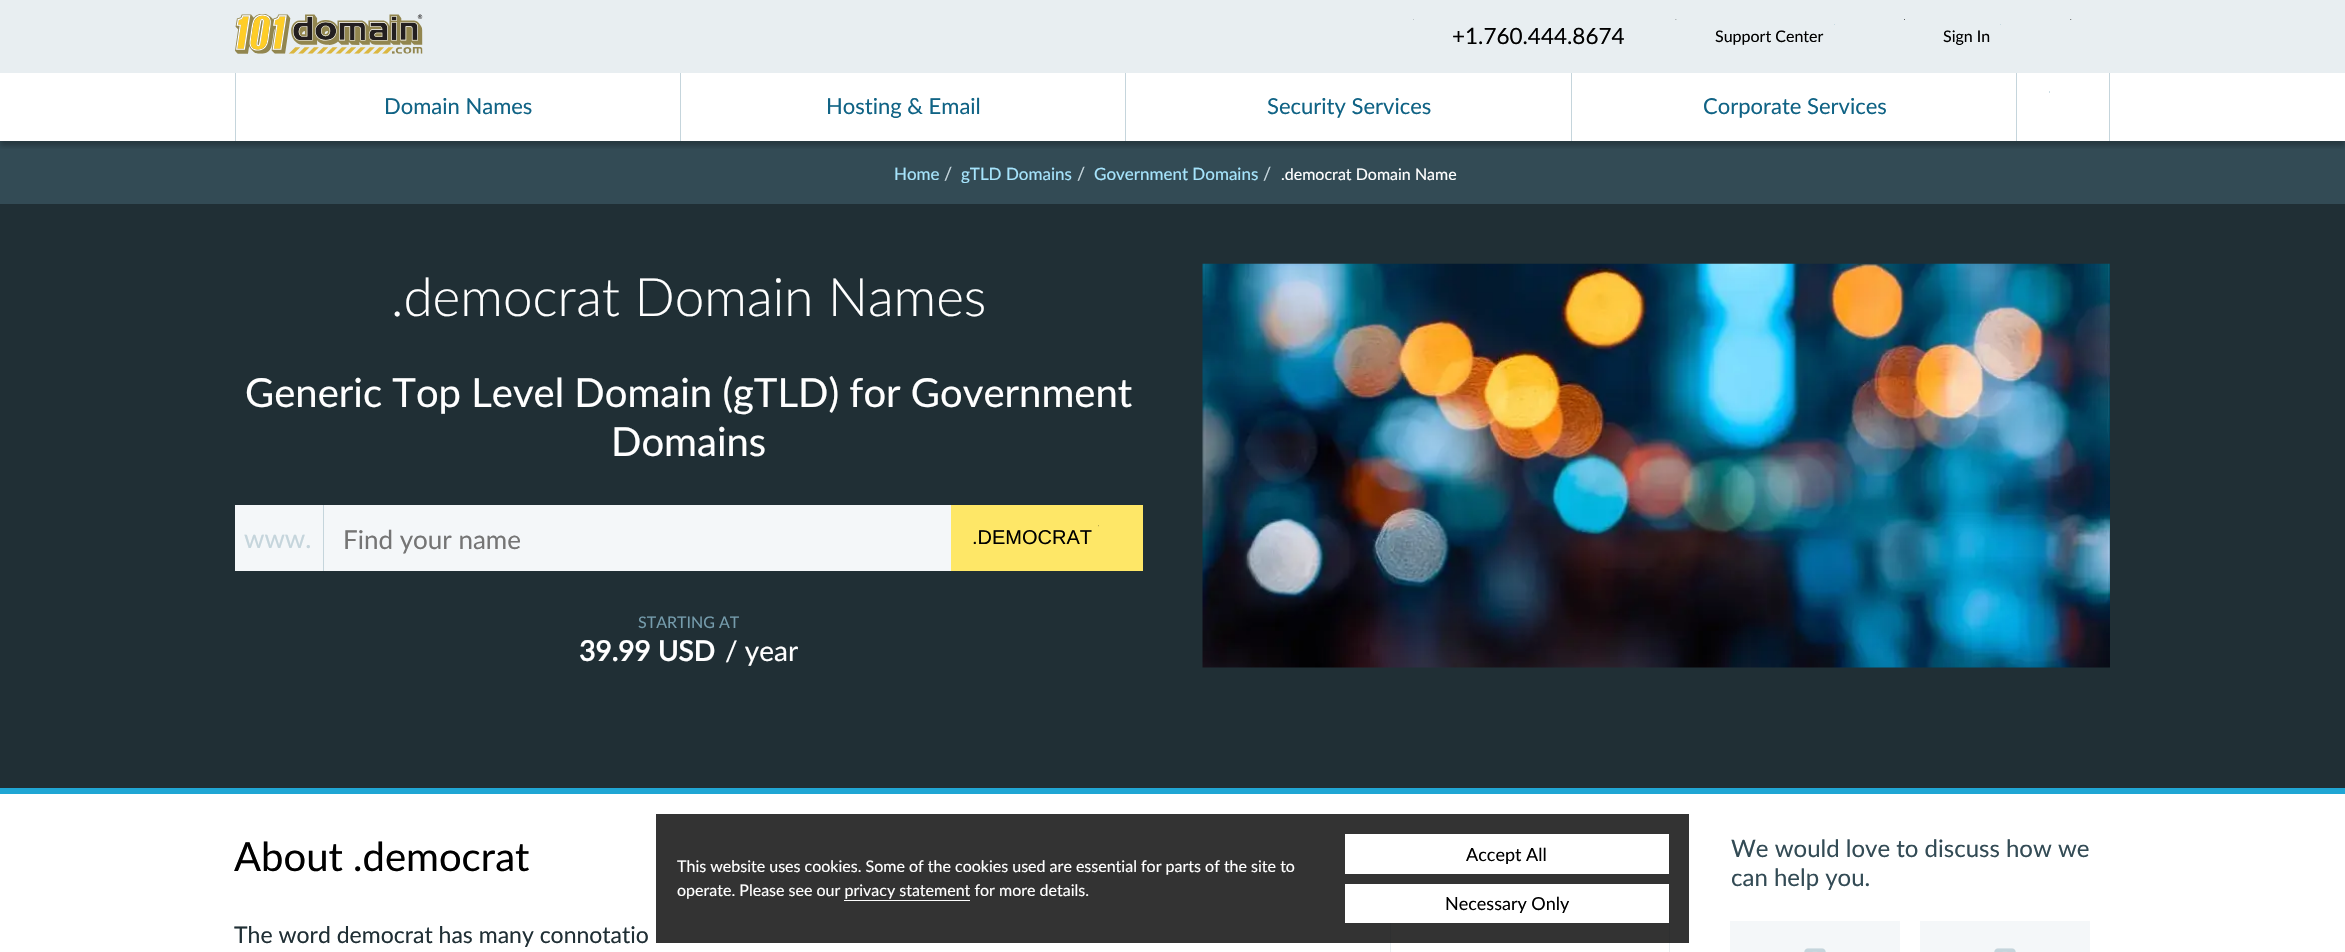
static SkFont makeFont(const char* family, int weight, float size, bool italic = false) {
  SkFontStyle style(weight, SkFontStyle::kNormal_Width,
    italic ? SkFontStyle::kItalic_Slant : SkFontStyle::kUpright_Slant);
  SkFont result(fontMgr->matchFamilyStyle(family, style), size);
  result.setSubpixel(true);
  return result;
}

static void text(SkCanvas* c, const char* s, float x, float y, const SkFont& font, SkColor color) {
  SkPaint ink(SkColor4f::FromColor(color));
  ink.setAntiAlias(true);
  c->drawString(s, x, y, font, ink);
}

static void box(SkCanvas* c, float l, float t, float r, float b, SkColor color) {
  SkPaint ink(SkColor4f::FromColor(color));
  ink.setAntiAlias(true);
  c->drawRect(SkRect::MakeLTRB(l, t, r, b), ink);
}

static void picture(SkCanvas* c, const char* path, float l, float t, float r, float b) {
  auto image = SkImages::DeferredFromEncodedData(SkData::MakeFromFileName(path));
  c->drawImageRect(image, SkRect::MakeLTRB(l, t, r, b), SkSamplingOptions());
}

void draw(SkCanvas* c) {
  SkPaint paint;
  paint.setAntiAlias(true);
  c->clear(0xffffffff);
  box(c, 0, 141, 2345, 204, 0xff334b55);
  c->save();
  c->clipRect(SkRect::MakeLTRB(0, 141, 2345, 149));
  paint.setColor(0x40000000);
  paint.setMaskFilter(SkMaskFilter::MakeBlur(kNormal_SkBlurStyle, 2.5f));
  c->drawRect(SkRect::MakeLTRB(0, 5, 2345, 146), paint);
  paint.setMaskFilter(nullptr);
  c->restore();
  box(c, 0, 0, 2345, 73, 0xffe8eef1);
  picture(c, "img_01.png", 235, 14, 423, 54);
  picture(c, "img_02.png", 2070, 19, 2072, 20);
  box(c, 1413, 19, 1414, 20, 0xffbec3c6);
  SkFont face1 = makeFont("Lato", 400, 22.5f);
  text(c, "+1.760.444.8674", 1452, 44, face1, 0xff000000);
  picture(c, "img_03.png", 1675, 19, 1677, 20);
  paint.setColor(0xff106385);
  c->drawPath(SkPathBuilder().moveTo(1834.5f, 24.5f).cubicTo(1834.5f, 25.5f, 1833.5f, 23.5f, 1834.5f, 24.5f).close().detach(), paint);
  SkFont face2 = makeFont("Lato", 400, 16);
  text(c, "Support Center", 1715, 42, face2, 0xff000000);
  box(c, 1904, 19, 1905, 20, 0xff5d5f60);
  c->drawPath(SkPathBuilder().moveTo(2001, 24.5f).cubicTo(2001, 25.5f, 1999.5f, 23.5f, 2000.5f, 24.5f).close().detach(), paint);
  text(c, "Sign In", 1943, 42, face2, 0xff000000);
  box(c, 235, 73, 236, 141, 0xffc5d5dc);
  SkFont face3 = makeFont("Lato", 400, 22);
  text(c, "Domain Names", 384, 114, face3, 0xff106385);
  box(c, 680, 73, 681, 141, 0xffc5d5dc);
  text(c, "Hosting & Email", 826, 114, face3, 0xff106385);
  box(c, 1125, 73, 1126, 141, 0xffc5d5dc);
  text(c, "Security Services", 1267, 114, face3, 0xff106385);
  box(c, 1571, 73, 1572, 141, 0xffc5d5dc);
  text(c, "Corporate Services", 1703, 114, face3, 0xff106385);
  box(c, 2109, 73, 2110, 141, 0xffc5d5dc);
  box(c, 2016, 73, 2017, 141, 0xffc5d5dc);
  box(c, 2049, 91, 2050, 93, 0xffcddee5);
  SkFont face4 = makeFont("Lato", 400, 17);
  text(c, "Home", 894, 180, face4, 0xffa6e4fc);
  SkFont face5 = makeFont("Lato", 400, 18);
  text(c, "/", 944, 180, face5, 0xffc5d5dc);
  text(c, "gTLD Domains", 961, 180, face4, 0xffa6e4fc);
  text(c, "/", 1077, 180, face5, 0xffc5d5dc);
  text(c, "Government Domains", 1094, 180, face4, 0xffa6e4fc);
  text(c, "/", 1263, 180, face5, 0xffc5d5dc);
  text(c, ".democrat Domain Name", 1281, 180, face2, 0xffffffff);
  box(c, 0, 204, 2345, 788, 0xff202f35);
  box(c, 0, 788, 2345, 794, 0xff20a6d4);
  SkFont face6 = makeFont("Lato", 300, 53);
  text(c, ".democrat Domain Names", 391, 316, face6, 0xffffffff);
  SkFont face7 = makeFont("Lato", 400, 40);
  text(c, "Generic Top Level Domain (gTLD) for Government", 245, 407, face7, 0xffffffff);
  text(c, "Domains", 611, 456, face7, 0xffffffff);
  box(c, 235, 505, 951, 571, 0xfff4f7f9);
  box(c, 323, 505, 324, 571, 0xffc5d5dc);
  SkFont face8 = makeFont("Lato", 400, 26);
  text(c, "www.", 244, 548, face8, 0xffc5d5dc);
  text(c, "Find your name", 343, 549, face8, 0xff757575);
  box(c, 951, 505, 1143, 571, 0xfffee767);
  picture(c, "img_04.png", 1098, 525, 1099, 527);
  SkFont face9 = makeFont("Liberation Sans", 400, 20);
  text(c, ".DEMOCRAT", 972, 544, face9, 0xff000000);
  text(c, "STARTING AT", 638, 628, face2, 0xff759cac);
  SkFont face10 = makeFont("Lato", 700, 28);
  text(c, "39.99 USD", 579, 661, face10, 0xffffffff);
  SkFont face11 = makeFont("Lato", 400, 28);
  text(c, "/ year", 725, 661, face11, 0xffffffff);
  picture(c, "img_05.png", 1202, 263, 2110, 668);
  text(c, "About .democrat", 234, 871, face7, 0xff000000);
  SkFont face12 = makeFont("Lato", 400, 23);
  text(c, "The word democrat has many connotatio", 234, 943, face12, 0xff202f35);
  paint.setStyle(SkPaint::kStroke_Style);
  paint.setStrokeWidth(1);
  paint.setColor(0xffe8eef1);
  c->drawRect(SkRect::MakeLTRB(1390.5f, 918.5f, 1669.5f, 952.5f), paint);
  SkFont face13 = makeFont("Lato", 400, 24);
  text(c, "We would love to discuss how we", 1731, 857, face13, 0xff334b55);
  text(c, "can help you.", 1731, 886, face13, 0xff334b55);
  box(c, 1730, 921, 1900, 952, 0xfff4f7f9);
  picture(c, "img_06.png", 1804, 948, 1826, 952);
  box(c, 1920, 921, 2090, 952, 0xfff4f7f9);
  picture(c, "img_06.png", 1994, 948, 2016, 952);
  box(c, 656, 814, 1689, 943, 0xcc000000);
  text(c, "This website uses cookies. Some of the cookies used are essential for parts of the site to", 677, 872, face2, 0xffffffff);
  text(c, "operate. Please see our privacy statement for more details.", 677, 896, face2, 0xffffffff);
  box(c, 844, 900, 970, 901, 0xffffffff);
  box(c, 1345, 834, 1669, 874, 0xffffffff);
  text(c, "Accept All", 1466, 861, face5, 0xff000000);
  box(c, 1345, 884, 1669, 923, 0xffffffff);
  text(c, "Necessary Only", 1445, 910, face5, 0xff000000);
}
